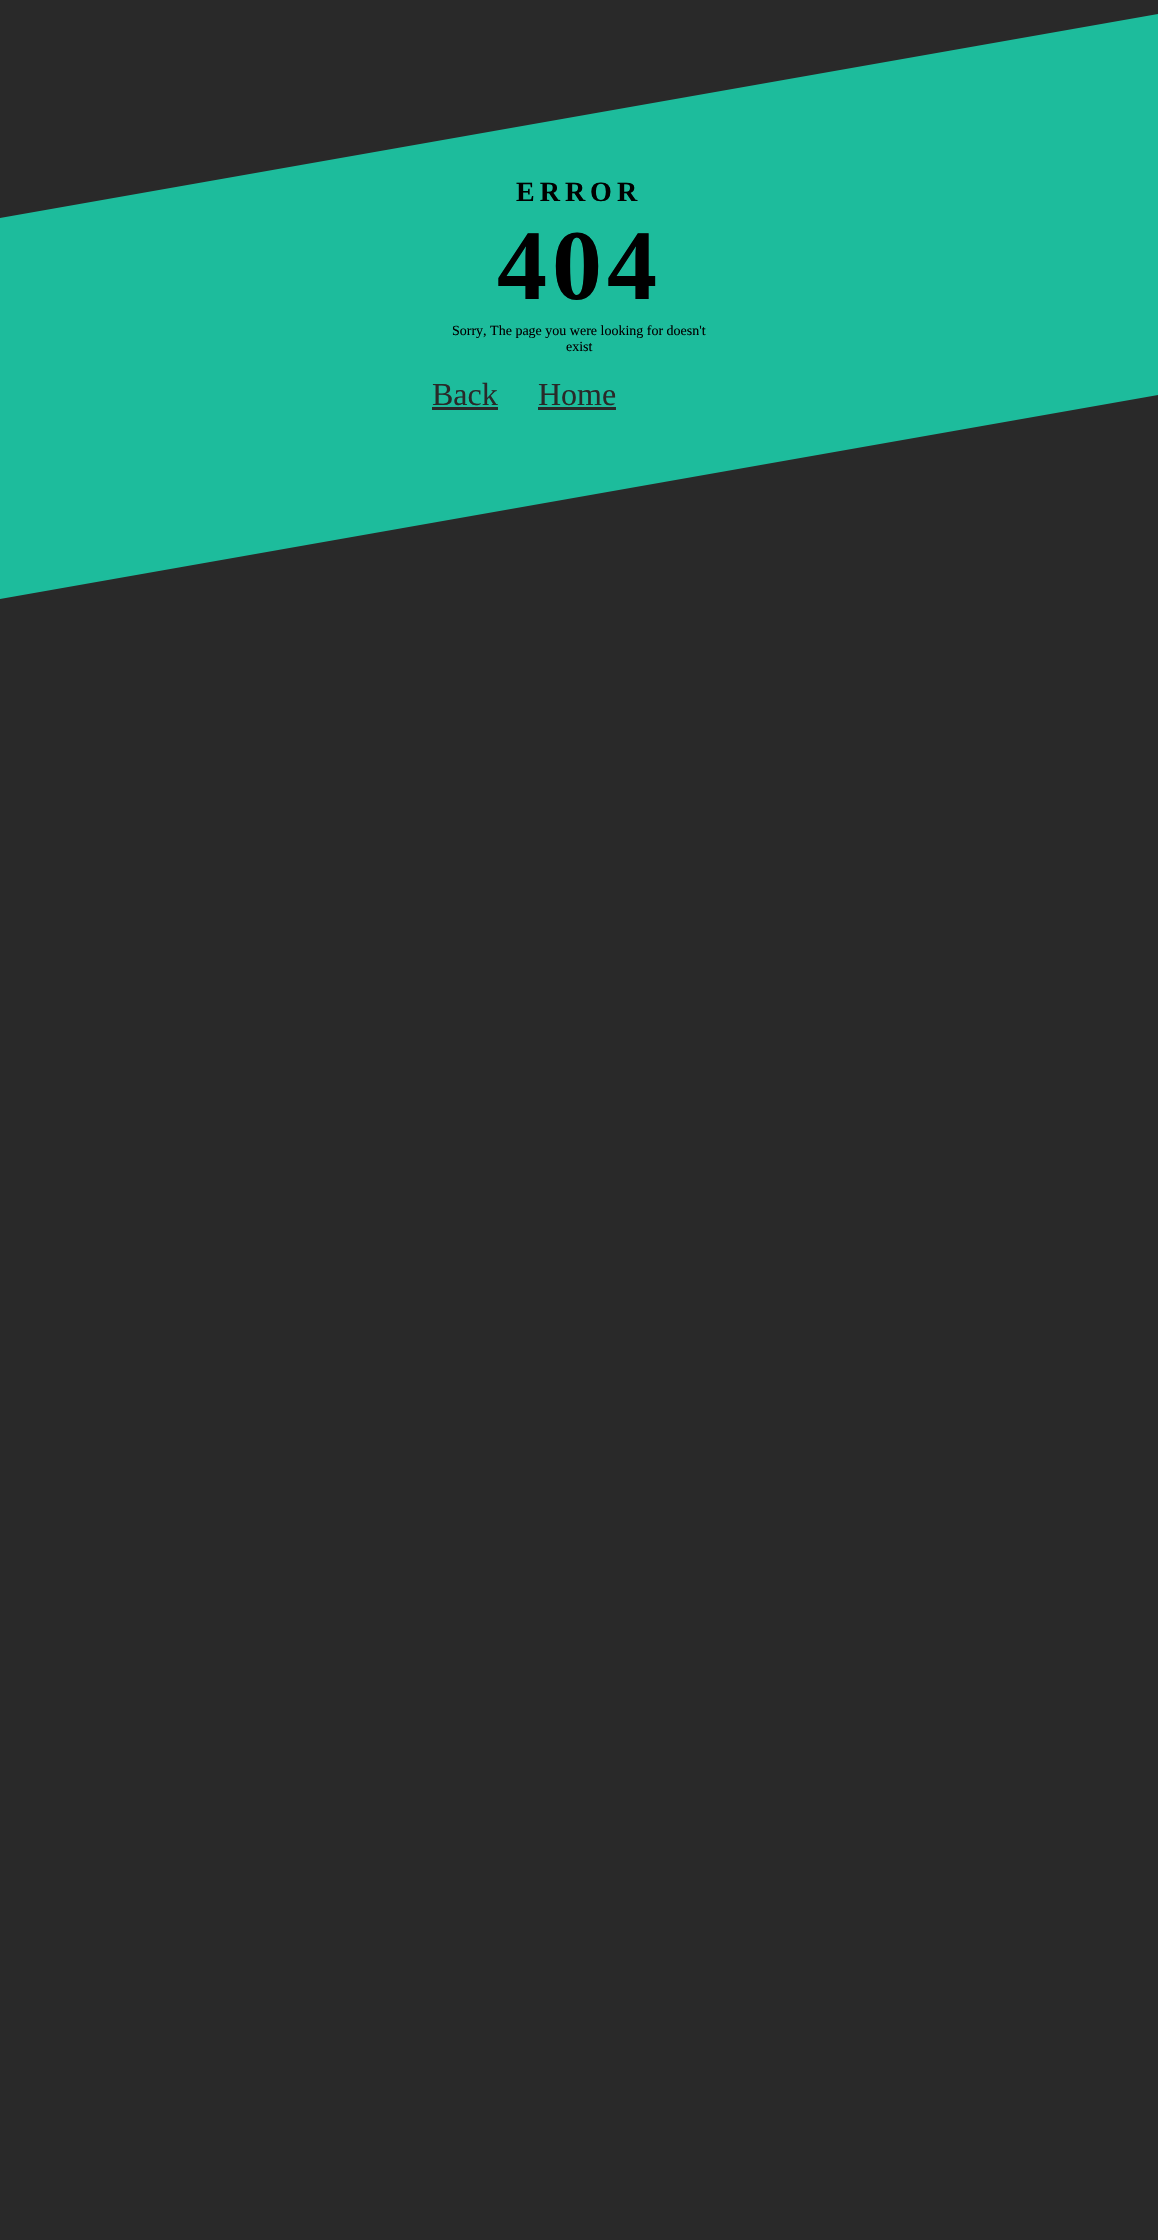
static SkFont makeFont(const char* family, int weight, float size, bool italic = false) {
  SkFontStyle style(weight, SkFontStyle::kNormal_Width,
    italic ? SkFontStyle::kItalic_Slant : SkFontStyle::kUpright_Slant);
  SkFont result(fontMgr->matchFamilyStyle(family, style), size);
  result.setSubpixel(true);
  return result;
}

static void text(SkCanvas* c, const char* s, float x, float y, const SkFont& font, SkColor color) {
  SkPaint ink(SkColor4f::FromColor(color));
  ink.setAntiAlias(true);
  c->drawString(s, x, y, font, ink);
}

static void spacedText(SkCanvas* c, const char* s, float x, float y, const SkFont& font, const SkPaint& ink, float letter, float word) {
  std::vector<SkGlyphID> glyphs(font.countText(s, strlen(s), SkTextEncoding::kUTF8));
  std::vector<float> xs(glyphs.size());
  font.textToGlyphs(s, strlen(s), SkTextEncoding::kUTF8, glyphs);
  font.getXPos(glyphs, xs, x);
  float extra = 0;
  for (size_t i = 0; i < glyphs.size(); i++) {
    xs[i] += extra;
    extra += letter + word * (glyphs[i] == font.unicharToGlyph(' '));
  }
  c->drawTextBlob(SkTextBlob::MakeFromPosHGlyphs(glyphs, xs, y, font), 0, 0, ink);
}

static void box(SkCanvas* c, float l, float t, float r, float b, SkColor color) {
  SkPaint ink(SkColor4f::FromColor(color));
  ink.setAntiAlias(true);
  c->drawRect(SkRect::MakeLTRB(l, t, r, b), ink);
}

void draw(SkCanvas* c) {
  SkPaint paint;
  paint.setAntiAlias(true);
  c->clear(0xff292929);
  paint.setColor(0xff1dbc9c);
  c->drawPath(SkPathBuilder().moveTo(0, 218).lineTo(1158, 14).lineTo(1158, 395).lineTo(0, 599).close().detach(), paint);
  SkFont face1 = makeFont("Liberation Serif", 700, 28);
  paint.setColor(0xff000000);
  spacedText(c, "ERROR", 516, 201, face1, paint, 5, 0);
  SkFont face2 = makeFont("Liberation Serif", 700, 100);
  spacedText(c, "404", 497, 299, face2, paint, 5, 0);
  SkFont face3 = makeFont("Liberation Serif", 400, 14);
  text(c, "Sorry, The page you were looking for doesn't", 452, 335, face3, 0xff000000);
  text(c, "exist", 566, 351, face3, 0xff000000);
  SkFont face4 = makeFont("Liberation Serif", 400, 32);
  text(c, "Back", 432, 405, face4, 0xff292929);
  box(c, 432, 407, 498, 410, 0xff292929);
  text(c, "Home", 538, 405, face4, 0xff292929);
  box(c, 538, 407, 616, 410, 0xff292929);
}
